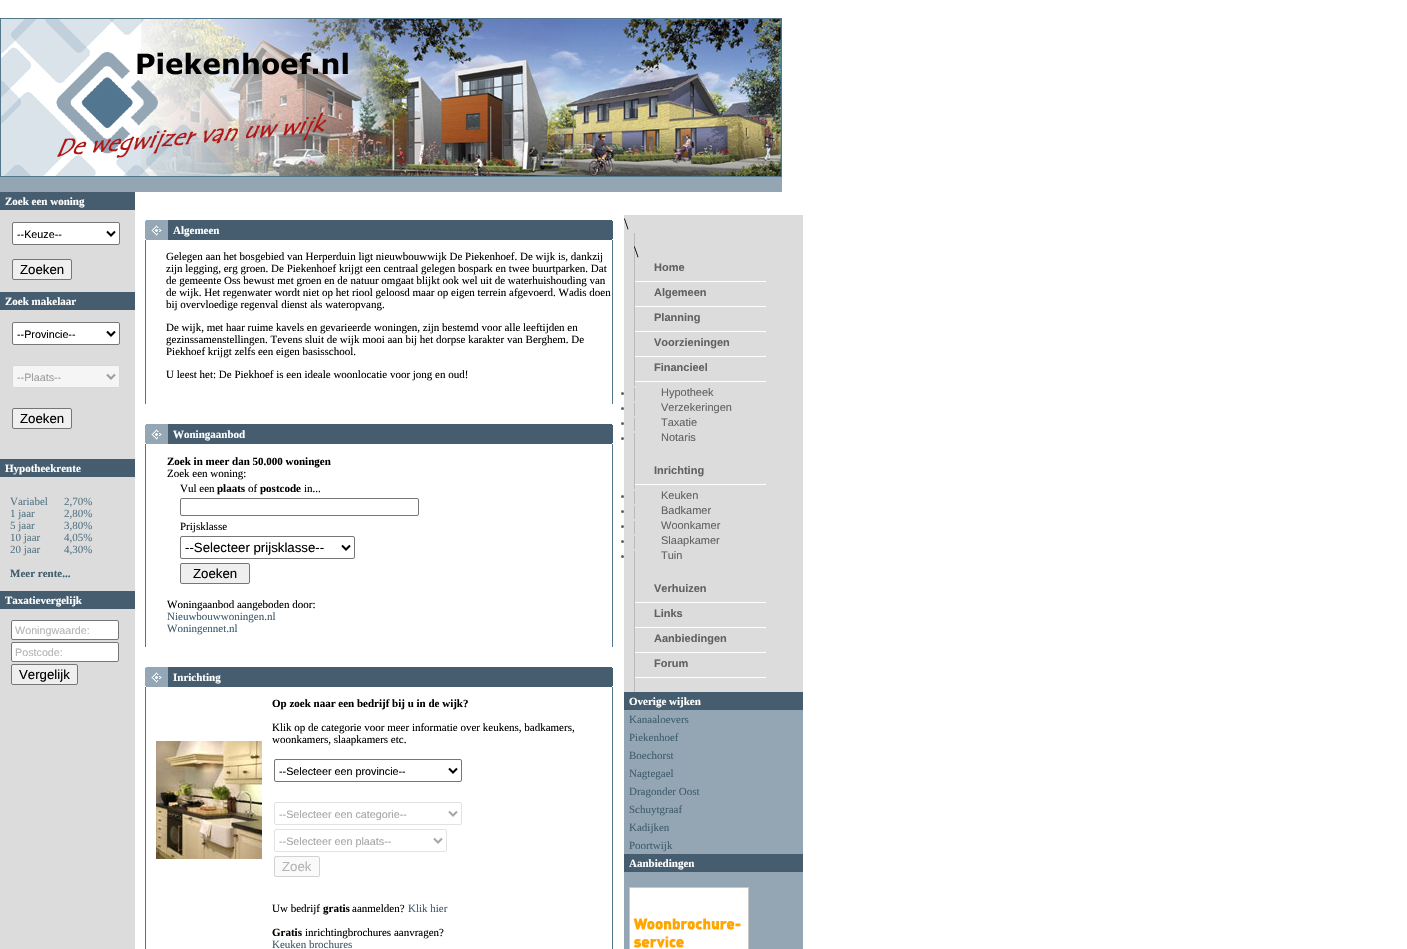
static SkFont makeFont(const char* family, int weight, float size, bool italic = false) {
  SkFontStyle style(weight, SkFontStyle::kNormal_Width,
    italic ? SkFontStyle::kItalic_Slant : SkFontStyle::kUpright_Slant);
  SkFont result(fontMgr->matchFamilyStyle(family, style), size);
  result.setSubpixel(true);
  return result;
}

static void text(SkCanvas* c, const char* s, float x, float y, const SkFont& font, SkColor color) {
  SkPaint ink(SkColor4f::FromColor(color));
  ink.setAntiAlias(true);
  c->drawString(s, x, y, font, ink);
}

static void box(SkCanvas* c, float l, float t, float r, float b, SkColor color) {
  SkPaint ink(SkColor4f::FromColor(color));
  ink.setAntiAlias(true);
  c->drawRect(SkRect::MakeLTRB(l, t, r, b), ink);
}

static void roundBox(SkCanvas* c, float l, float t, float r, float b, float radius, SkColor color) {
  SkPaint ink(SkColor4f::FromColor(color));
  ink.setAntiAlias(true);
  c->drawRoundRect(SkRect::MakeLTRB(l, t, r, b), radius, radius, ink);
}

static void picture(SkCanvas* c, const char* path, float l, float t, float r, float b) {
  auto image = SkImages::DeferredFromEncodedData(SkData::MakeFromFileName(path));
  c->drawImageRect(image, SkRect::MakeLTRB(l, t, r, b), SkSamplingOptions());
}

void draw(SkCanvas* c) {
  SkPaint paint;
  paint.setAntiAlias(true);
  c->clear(0xffffffff);
  paint.setStyle(SkPaint::kStroke_Style);
  paint.setStrokeWidth(1);
  paint.setColor(0xff54768a);
  c->drawRect(SkRect::MakeLTRB(0.5f, 18.5f, 781.5f, 176.5f), paint);
  picture(c, "img_01.png", 1, 19, 781, 176);
  box(c, 0, 177, 782, 192, 0xff94a6b4);
  box(c, 0, 210, 135, 949, 0xffdcdcdc);
  box(c, 0, 192, 135, 210, 0xff455d6e);
  SkFont face1 = makeFont("Liberation Serif", 700, 11);
  text(c, "Zoek een woning", 5, 205, face1, 0xffffffff);
  paint.setStyle(SkPaint::kFill_Style);
  paint.setColor(0xffffffff);
  c->drawRoundRect(SkRect::MakeLTRB(12.5f, 222.5f, 119.5f, 244.5f), 1.5f, 1.5f, paint);
  paint.setStyle(SkPaint::kStroke_Style);
  paint.setColor(0xff767676);
  c->drawRoundRect(SkRect::MakeLTRB(12.5f, 222.5f, 119.5f, 244.5f), 1.5f, 1.5f, paint);
  paint.setStrokeWidth(2);
  paint.setColor(0xff000000);
  c->drawPath(SkPathBuilder().moveTo(107, 231.5f).lineTo(111, 235.5f).lineTo(115, 231.5f).detach(), paint);
  SkFont face2 = makeFont("Liberation Sans", 400, 10.75f);
  text(c, "--Keuze--", 17, 238, face2, 0xff000000);
  paint.setStyle(SkPaint::kFill_Style);
  paint.setColor(0xffefefef);
  c->drawRoundRect(SkRect::MakeLTRB(12.5f, 259.5f, 71.5f, 279.5f), 1.5f, 1.5f, paint);
  paint.setStyle(SkPaint::kStroke_Style);
  paint.setStrokeWidth(1);
  paint.setColor(0xff767676);
  c->drawRoundRect(SkRect::MakeLTRB(12.5f, 259.5f, 71.5f, 279.5f), 1.5f, 1.5f, paint);
  SkFont face3 = makeFont("Liberation Sans", 400, 13.25f);
  text(c, "Zoeken", 20, 274, face3, 0xff000000);
  box(c, 0, 292, 135, 310, 0xff455d6e);
  text(c, "Zoek makelaar", 5, 305, face1, 0xffffffff);
  paint.setStyle(SkPaint::kFill_Style);
  paint.setColor(0xffffffff);
  c->drawRoundRect(SkRect::MakeLTRB(12.5f, 322.5f, 119.5f, 344.5f), 1.5f, 1.5f, paint);
  paint.setStyle(SkPaint::kStroke_Style);
  paint.setColor(0xff767676);
  c->drawRoundRect(SkRect::MakeLTRB(12.5f, 322.5f, 119.5f, 344.5f), 1.5f, 1.5f, paint);
  paint.setStrokeWidth(2);
  paint.setColor(0xff000000);
  c->drawPath(SkPathBuilder().moveTo(107, 331.5f).lineTo(111, 335.5f).lineTo(115, 331.5f).detach(), paint);
  text(c, "--Provincie--", 17, 338, face2, 0xff000000);
  roundBox(c, 12, 365, 120, 388, 2, 0xfff5f5f5);
  paint.setStrokeWidth(1);
  paint.setColor(0x4d959595);
  c->drawRoundRect(SkRect::MakeLTRB(12.5f, 365.5f, 119.5f, 387.5f), 1.5f, 1.5f, paint);
  paint.setStrokeWidth(2);
  paint.setColor(0xff9c9c9c);
  c->drawPath(SkPathBuilder().moveTo(107, 374.5f).lineTo(111, 378.5f).lineTo(115, 374.5f).detach(), paint);
  text(c, "--Plaats--", 17, 381, face2, 0xff9c9c9c);
  paint.setStyle(SkPaint::kFill_Style);
  paint.setColor(0xffefefef);
  c->drawRoundRect(SkRect::MakeLTRB(12.5f, 408.5f, 71.5f, 428.5f), 1.5f, 1.5f, paint);
  paint.setStyle(SkPaint::kStroke_Style);
  paint.setStrokeWidth(1);
  paint.setColor(0xff767676);
  c->drawRoundRect(SkRect::MakeLTRB(12.5f, 408.5f, 71.5f, 428.5f), 1.5f, 1.5f, paint);
  text(c, "Zoeken", 20, 423, face3, 0xff000000);
  box(c, 0, 459, 135, 477, 0xff455d6e);
  text(c, "Hypotheekrente", 5, 472, face1, 0xffffffff);
  SkFont face4 = makeFont("Liberation Serif", 400, 11);
  text(c, "Variabel", 10, 505, face4, 0xff567788);
  text(c, "2,70%", 64, 505, face4, 0xff567788);
  text(c, "1 jaar", 10, 517, face4, 0xff567788);
  text(c, "2,80%", 64, 517, face4, 0xff567788);
  text(c, "5 jaar", 10, 529, face4, 0xff567788);
  text(c, "3,80%", 64, 529, face4, 0xff567788);
  text(c, "10 jaar", 10, 541, face4, 0xff567788);
  text(c, "4,05%", 64, 541, face4, 0xff567788);
  text(c, "20 jaar", 10, 553, face4, 0xff567788);
  text(c, "4,30%", 64, 553, face4, 0xff567788);
  text(c, "Meer rente...", 10, 577, face1, 0xff405d6d);
  box(c, 0, 591, 135, 609, 0xff455d6e);
  text(c, "Taxatievergelijk", 5, 604, face1, 0xffffffff);
  paint.setStyle(SkPaint::kFill_Style);
  paint.setColor(0xffffffff);
  c->drawRoundRect(SkRect::MakeLTRB(11.5f, 620.5f, 118.5f, 639.5f), 1.5f, 1.5f, paint);
  paint.setStyle(SkPaint::kStroke_Style);
  paint.setColor(0xff767676);
  c->drawRoundRect(SkRect::MakeLTRB(11.5f, 620.5f, 118.5f, 639.5f), 1.5f, 1.5f, paint);
  text(c, "Woningwaarde:", 15, 634, face2, 0xffb4b4b3);
  paint.setStyle(SkPaint::kFill_Style);
  paint.setColor(0xffffffff);
  c->drawRoundRect(SkRect::MakeLTRB(11.5f, 642.5f, 118.5f, 661.5f), 1.5f, 1.5f, paint);
  paint.setStyle(SkPaint::kStroke_Style);
  paint.setColor(0xff767676);
  c->drawRoundRect(SkRect::MakeLTRB(11.5f, 642.5f, 118.5f, 661.5f), 1.5f, 1.5f, paint);
  text(c, "Postcode:", 15, 656, face2, 0xffb4b4b3);
  paint.setStyle(SkPaint::kFill_Style);
  paint.setColor(0xffefefef);
  c->drawRoundRect(SkRect::MakeLTRB(11.5f, 664.5f, 77.5f, 684.5f), 1.5f, 1.5f, paint);
  paint.setStyle(SkPaint::kStroke_Style);
  paint.setColor(0xff767676);
  c->drawRoundRect(SkRect::MakeLTRB(11.5f, 664.5f, 77.5f, 684.5f), 1.5f, 1.5f, paint);
  text(c, "Vergelijk", 19, 679, face3, 0xff000000);
  picture(c, "img_02.png", 145, 220, 168, 240);
  box(c, 168, 220, 612, 240, 0xff455d6e);
  text(c, "Algemeen", 173, 234, face1, 0xffffffff);
  picture(c, "img_03.png", 612, 220, 613, 240);
  box(c, 612, 240, 613, 404, 0xff54768a);
  box(c, 145, 240, 146, 404, 0xff54768a);
  text(c, "Gelegen aan het bosgebied van Herperduin ligt nieuwbouwwijk De Piekenhoef. De wijk is, dankzij", 166, 260, face4, 0xff000000);
  text(c, "zijn legging, erg groen. De Piekenhoef krijgt een centraal gelegen bospark en twee buurtparken. Dat", 166, 272, face4, 0xff000000);
  text(c, "de gemeente Oss bewust met groen en de natuur omgaat blijkt ook wel uit de waterhuishouding van", 166, 284, face4, 0xff000000);
  text(c, "de wijk. Het regenwater wordt niet op het riool geloosd maar op eigen terrein afgevoerd. Wadis doen", 166, 296, face4, 0xff000000);
  text(c, "bij overvloedige regenval dienst als wateropvang.", 166, 308, face4, 0xff000000);
  text(c, "De wijk, met haar ruime kavels en gevarieerde woningen, zijn bestemd voor alle leeftijden en", 166, 331, face4, 0xff000000);
  text(c, "gezinssamenstellingen. Tevens sluit de wijk mooi aan bij het dorpse karakter van Berghem. De", 166, 343, face4, 0xff000000);
  text(c, "Piekhoef krijgt zelfs een eigen basisschool.", 166, 355, face4, 0xff000000);
  text(c, "U leest het: De Piekhoef is een ideale woonlocatie voor jong en oud!", 166, 378, face4, 0xff000000);
  picture(c, "img_02.png", 145, 424, 168, 444);
  box(c, 168, 424, 612, 444, 0xff455d6e);
  text(c, "Woningaanbod", 173, 438, face1, 0xffffffff);
  picture(c, "img_03.png", 612, 424, 613, 444);
  box(c, 612, 444, 613, 647, 0xff54768a);
  box(c, 145, 444, 146, 647, 0xff54768a);
  text(c, "Zoek in meer dan 50.000 woningen", 167, 465, face1, 0xff000000);
  text(c, "Zoek een woning:", 167, 477, face4, 0xff000000);
  text(c, "Vul een", 180, 492, face4, 0xff000000);
  text(c, "plaats", 217, 492, face1, 0xff000000);
  text(c, "of", 248, 492, face4, 0xff000000);
  text(c, "postcode", 260, 492, face1, 0xff000000);
  text(c, "in...", 304, 492, face4, 0xff000000);
  c->drawRoundRect(SkRect::MakeLTRB(180.5f, 498.5f, 418.5f, 515.5f), 1.5f, 1.5f, paint);
  text(c, "Prijsklasse", 180, 530, face4, 0xff000000);
  c->drawRoundRect(SkRect::MakeLTRB(180.5f, 536.5f, 354.5f, 558.5f), 1.5f, 1.5f, paint);
  paint.setStrokeWidth(2);
  paint.setColor(0xff000000);
  c->drawPath(SkPathBuilder().moveTo(342, 545.5f).lineTo(346, 549.5f).lineTo(350, 545.5f).detach(), paint);
  text(c, "--Selecteer prijsklasse--", 185, 552, face3, 0xff000000);
  paint.setStyle(SkPaint::kFill_Style);
  paint.setColor(0xffefefef);
  c->drawRoundRect(SkRect::MakeLTRB(180.5f, 563.5f, 249.5f, 583.5f), 1.5f, 1.5f, paint);
  paint.setStyle(SkPaint::kStroke_Style);
  paint.setStrokeWidth(1);
  paint.setColor(0xff767676);
  c->drawRoundRect(SkRect::MakeLTRB(180.5f, 563.5f, 249.5f, 583.5f), 1.5f, 1.5f, paint);
  text(c, "Zoeken", 193, 578, face3, 0xff000000);
  text(c, "Woningaanbod aangeboden door:", 167, 608, face4, 0xff000000);
  text(c, "Nieuwbouwwoningen.nl", 167, 620, face4, 0xff405d6d);
  text(c, "Woningennet.nl", 167, 632, face4, 0xff405d6d);
  picture(c, "img_02.png", 145, 667, 168, 687);
  box(c, 168, 667, 612, 687, 0xff455d6e);
  text(c, "Inrichting", 173, 681, face1, 0xffffffff);
  picture(c, "img_03.png", 612, 667, 613, 687);
  box(c, 612, 687, 613, 949, 0xff54768a);
  box(c, 145, 687, 146, 949, 0xff54768a);
  picture(c, "img_04.png", 156, 741, 262, 859);
  text(c, "Op zoek naar een bedrijf bij u in de wijk?", 272, 707, face1, 0xff000000);
  text(c, "Klik op de categorie voor meer informatie over keukens, badkamers,", 272, 731, face4, 0xff000000);
  text(c, "woonkamers, slaapkamers etc.", 272, 743, face4, 0xff000000);
  c->drawRoundRect(SkRect::MakeLTRB(274.5f, 759.5f, 461.5f, 781.5f), 1.5f, 1.5f, paint);
  paint.setStrokeWidth(2);
  paint.setColor(0xff000000);
  c->drawPath(SkPathBuilder().moveTo(449, 768.5f).lineTo(453, 772.5f).lineTo(457, 768.5f).detach(), paint);
  text(c, "--Selecteer een provincie--", 279, 775, face2, 0xff000000);
  paint.setStrokeWidth(1);
  paint.setColor(0xffe2e2e2);
  c->drawRoundRect(SkRect::MakeLTRB(274.5f, 802.5f, 461.5f, 824.5f), 1.5f, 1.5f, paint);
  paint.setStrokeWidth(2);
  paint.setColor(0xffa6a6a6);
  c->drawPath(SkPathBuilder().moveTo(449, 811.5f).lineTo(453, 815.5f).lineTo(457, 811.5f).detach(), paint);
  text(c, "--Selecteer een categorie--", 279, 818, face2, 0xffa6a6a6);
  paint.setStrokeWidth(1);
  paint.setColor(0xffe2e2e2);
  c->drawRoundRect(SkRect::MakeLTRB(274.5f, 829.5f, 446.5f, 851.5f), 1.5f, 1.5f, paint);
  paint.setStrokeWidth(2);
  paint.setColor(0xffa6a6a6);
  c->drawPath(SkPathBuilder().moveTo(434, 838.5f).lineTo(438, 842.5f).lineTo(442, 838.5f).detach(), paint);
  text(c, "--Selecteer een plaats--", 279, 845, face2, 0xffa6a6a6);
  paint.setStyle(SkPaint::kFill_Style);
  paint.setColor(0xfffafafa);
  c->drawRoundRect(SkRect::MakeLTRB(274.5f, 856.5f, 319.5f, 876.5f), 1.5f, 1.5f, paint);
  paint.setStyle(SkPaint::kStroke_Style);
  paint.setStrokeWidth(1);
  paint.setColor(0xffd2d2d2);
  c->drawRoundRect(SkRect::MakeLTRB(274.5f, 856.5f, 319.5f, 876.5f), 1.5f, 1.5f, paint);
  text(c, "Zoek", 282, 871, face3, 0xffb4b4b3);
  text(c, "Uw bedrijf", 272, 912, face4, 0xff000000);
  text(c, "gratis", 323, 912, face1, 0xff000000);
  text(c, "aanmelden?", 352, 912, face4, 0xff000000);
  text(c, "Klik hier", 408, 912, face4, 0xff405d6d);
  text(c, "Gratis", 272, 936, face1, 0xff000000);
  text(c, "inrichtingbrochures aanvragen?", 305, 936, face4, 0xff000000);
  text(c, "Keuken brochures", 272, 948, face4, 0xff405d6d);
  box(c, 624, 215, 803, 692, 0xffdcdcdc);
  SkFont face5 = makeFont("Liberation Serif", 400, 16);
  text(c, "\\", 624, 229, face5, 0xff000000);
  box(c, 634, 233, 635, 692, 0xffbababa);
  text(c, "\\", 634, 257, face5, 0xff000000);
  box(c, 635, 281, 766, 282, 0xffffffff);
  SkFont face6 = makeFont("Liberation Sans", 700, 11);
  text(c, "Home", 654, 271, face6, 0xff616161);
  box(c, 635, 306, 766, 307, 0xffffffff);
  text(c, "Algemeen", 654, 296, face6, 0xff616161);
  box(c, 635, 331, 766, 332, 0xffffffff);
  text(c, "Planning", 654, 321, face6, 0xff616161);
  box(c, 635, 356, 766, 357, 0xffffffff);
  text(c, "Voorzieningen", 654, 346, face6, 0xff616161);
  box(c, 635, 381, 766, 382, 0xffffffff);
  text(c, "Financieel", 654, 371, face6, 0xff616161);
  box(c, 634, 386, 635, 388, 0xffdcdcdc);
  paint.setStyle(SkPaint::kFill_Style);
  paint.setColor(0xff616161);
  c->drawCircle(622.5f, 393.5f, 1.5f, paint);
  SkFont face7 = makeFont("Liberation Sans", 400, 11);
  text(c, "Hypotheek", 661, 396, face7, 0xff616161);
  box(c, 634, 401, 635, 403, 0xffdcdcdc);
  c->drawCircle(622.5f, 408.5f, 1.5f, paint);
  text(c, "Verzekeringen", 661, 411, face7, 0xff616161);
  box(c, 634, 416, 635, 418, 0xffdcdcdc);
  c->drawCircle(622.5f, 423.5f, 1.5f, paint);
  text(c, "Taxatie", 661, 426, face7, 0xff616161);
  box(c, 634, 431, 635, 433, 0xffdcdcdc);
  c->drawCircle(622.5f, 438.5f, 1.5f, paint);
  text(c, "Notaris", 661, 441, face7, 0xff616161);
  box(c, 635, 484, 766, 485, 0xffffffff);
  text(c, "Inrichting", 654, 474, face6, 0xff616161);
  box(c, 634, 489, 635, 491, 0xffdcdcdc);
  c->drawCircle(622.5f, 496.5f, 1.5f, paint);
  text(c, "Keuken", 661, 499, face7, 0xff616161);
  box(c, 634, 504, 635, 506, 0xffdcdcdc);
  c->drawCircle(622.5f, 511.5f, 1.5f, paint);
  text(c, "Badkamer", 661, 514, face7, 0xff616161);
  box(c, 634, 519, 635, 521, 0xffdcdcdc);
  c->drawCircle(622.5f, 526.5f, 1.5f, paint);
  text(c, "Woonkamer", 661, 529, face7, 0xff616161);
  box(c, 634, 534, 635, 536, 0xffdcdcdc);
  c->drawCircle(622.5f, 541.5f, 1.5f, paint);
  text(c, "Slaapkamer", 661, 544, face7, 0xff616161);
  box(c, 634, 549, 635, 551, 0xffdcdcdc);
  c->drawCircle(622.5f, 556.5f, 1.5f, paint);
  text(c, "Tuin", 661, 559, face7, 0xff616161);
  box(c, 635, 602, 766, 603, 0xffffffff);
  text(c, "Verhuizen", 654, 592, face6, 0xff616161);
  box(c, 635, 627, 766, 628, 0xffffffff);
  text(c, "Links", 654, 617, face6, 0xff616161);
  box(c, 635, 652, 766, 653, 0xffffffff);
  text(c, "Aanbiedingen", 654, 642, face6, 0xff616161);
  box(c, 635, 677, 766, 678, 0xffffffff);
  text(c, "Forum", 654, 667, face6, 0xff616161);
  box(c, 624, 692, 803, 710, 0xff455d6e);
  text(c, "Overige wijken", 629, 705, face1, 0xffffffff);
  box(c, 624, 710, 803, 854, 0xff94a6b4);
  text(c, "Kanaaloevers", 629, 723, face4, 0xff405d6d);
  text(c, "Piekenhoef", 629, 741, face4, 0xff405d6d);
  text(c, "Boechorst", 629, 759, face4, 0xff405d6d);
  text(c, "Nagtegael", 629, 777, face4, 0xff405d6d);
  text(c, "Dragonder Oost", 629, 795, face4, 0xff405d6d);
  text(c, "Schuytgraaf", 629, 813, face4, 0xff405d6d);
  text(c, "Kadijken", 629, 831, face4, 0xff405d6d);
  text(c, "Poortwijk", 629, 849, face4, 0xff405d6d);
  box(c, 624, 854, 803, 872, 0xff455d6e);
  text(c, "Aanbiedingen", 629, 867, face1, 0xffffffff);
  box(c, 624, 872, 803, 949, 0xff94a6b4);
  picture(c, "img_05.png", 629, 887, 749, 949);
}
